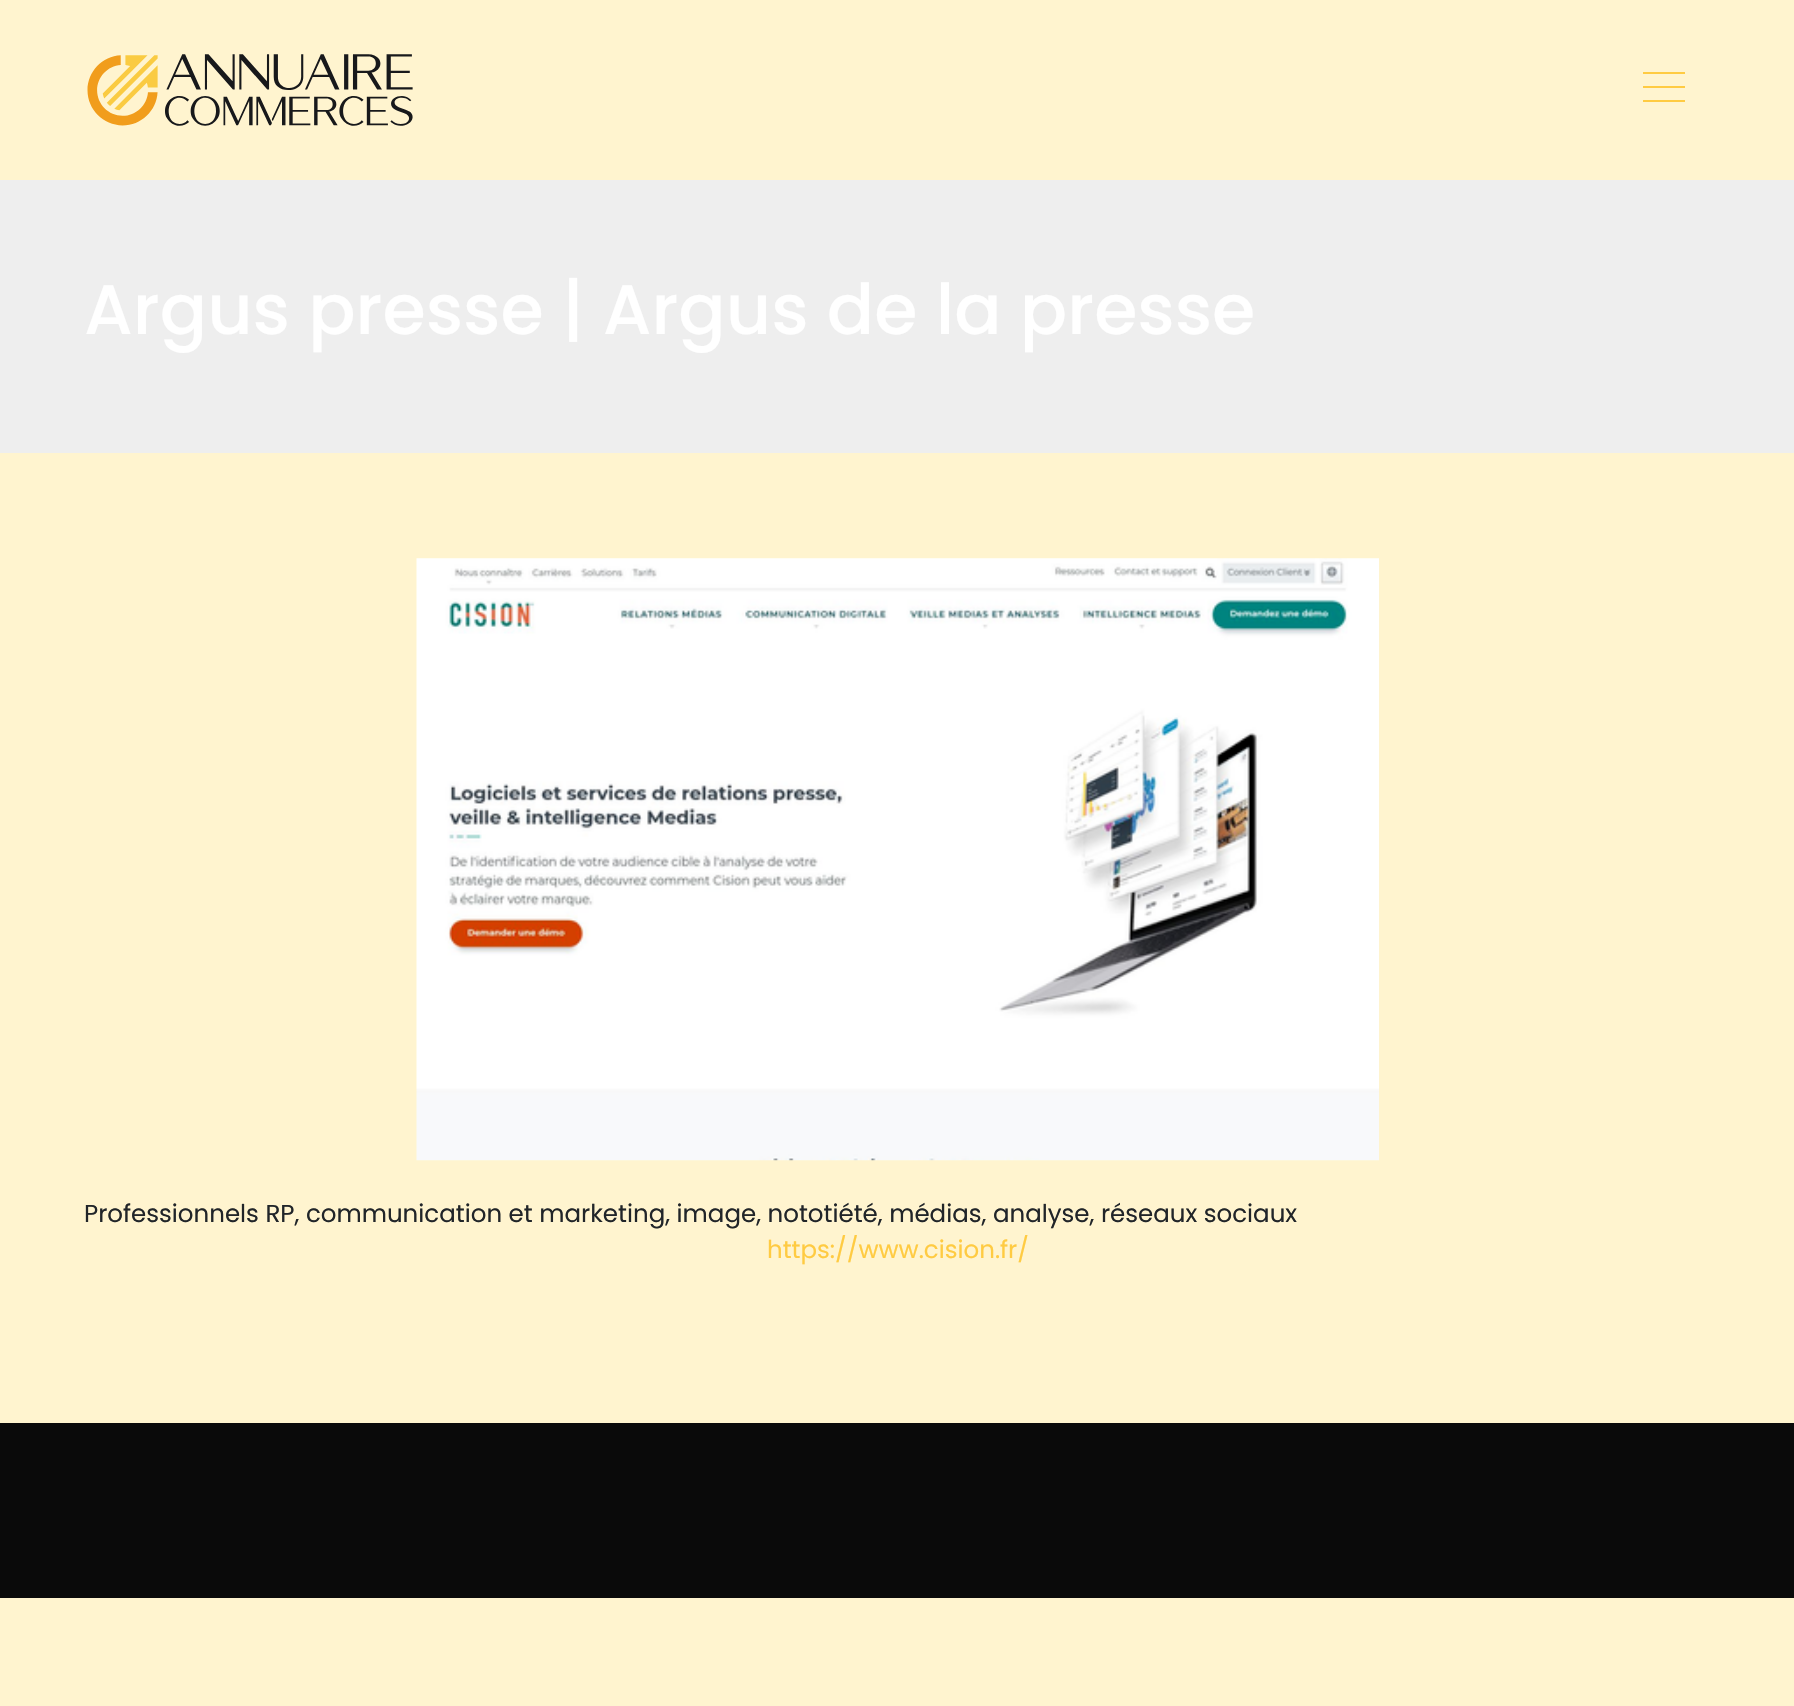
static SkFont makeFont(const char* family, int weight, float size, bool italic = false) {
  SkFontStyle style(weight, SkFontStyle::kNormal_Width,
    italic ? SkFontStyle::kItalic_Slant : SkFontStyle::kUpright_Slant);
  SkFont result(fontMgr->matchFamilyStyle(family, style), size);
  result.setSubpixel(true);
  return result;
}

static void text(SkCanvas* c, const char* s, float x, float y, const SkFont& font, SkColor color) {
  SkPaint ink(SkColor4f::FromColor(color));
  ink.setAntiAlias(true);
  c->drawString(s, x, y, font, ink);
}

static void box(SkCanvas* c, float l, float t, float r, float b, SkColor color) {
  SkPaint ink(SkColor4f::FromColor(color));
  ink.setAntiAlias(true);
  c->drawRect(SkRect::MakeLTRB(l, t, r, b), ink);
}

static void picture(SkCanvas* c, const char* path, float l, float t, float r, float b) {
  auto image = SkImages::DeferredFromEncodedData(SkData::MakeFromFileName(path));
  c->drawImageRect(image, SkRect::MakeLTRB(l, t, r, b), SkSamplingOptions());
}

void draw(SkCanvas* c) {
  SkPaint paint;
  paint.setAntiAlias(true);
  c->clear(0xfffff4cf);
  picture(c, "img_01.png", 87, 54, 413, 126);
  box(c, 1643, 72, 1685, 74, 0xffffcb42);
  box(c, 1643, 86, 1685, 88, 0xffffcb42);
  box(c, 1643, 100, 1685, 102, 0xffffcb42);
  box(c, 0, 180, 1794, 453, 0xffeeeeee);
  SkFont face1 = makeFont("Poppins", 500, 70);
  text(c, "Argus presse | Argus de la presse", 84, 334, face1, 0xffffffff);
  picture(c, "img_02.png", 416, 558, 1379, 1161);
  SkFont face2 = makeFont("Poppins", 400, 24.5f);
  text(c, "Professionnels RP, communication et marketing, image, nototiété, médias, analyse, réseaux sociaux", 84, 1222, face2, 0xff212529);
  text(c, "https://www.cision.fr/", 767, 1258, face2, 0xffffcb42);
  box(c, 0, 1423, 1794, 1598, 0xff0a0a0a);
}
